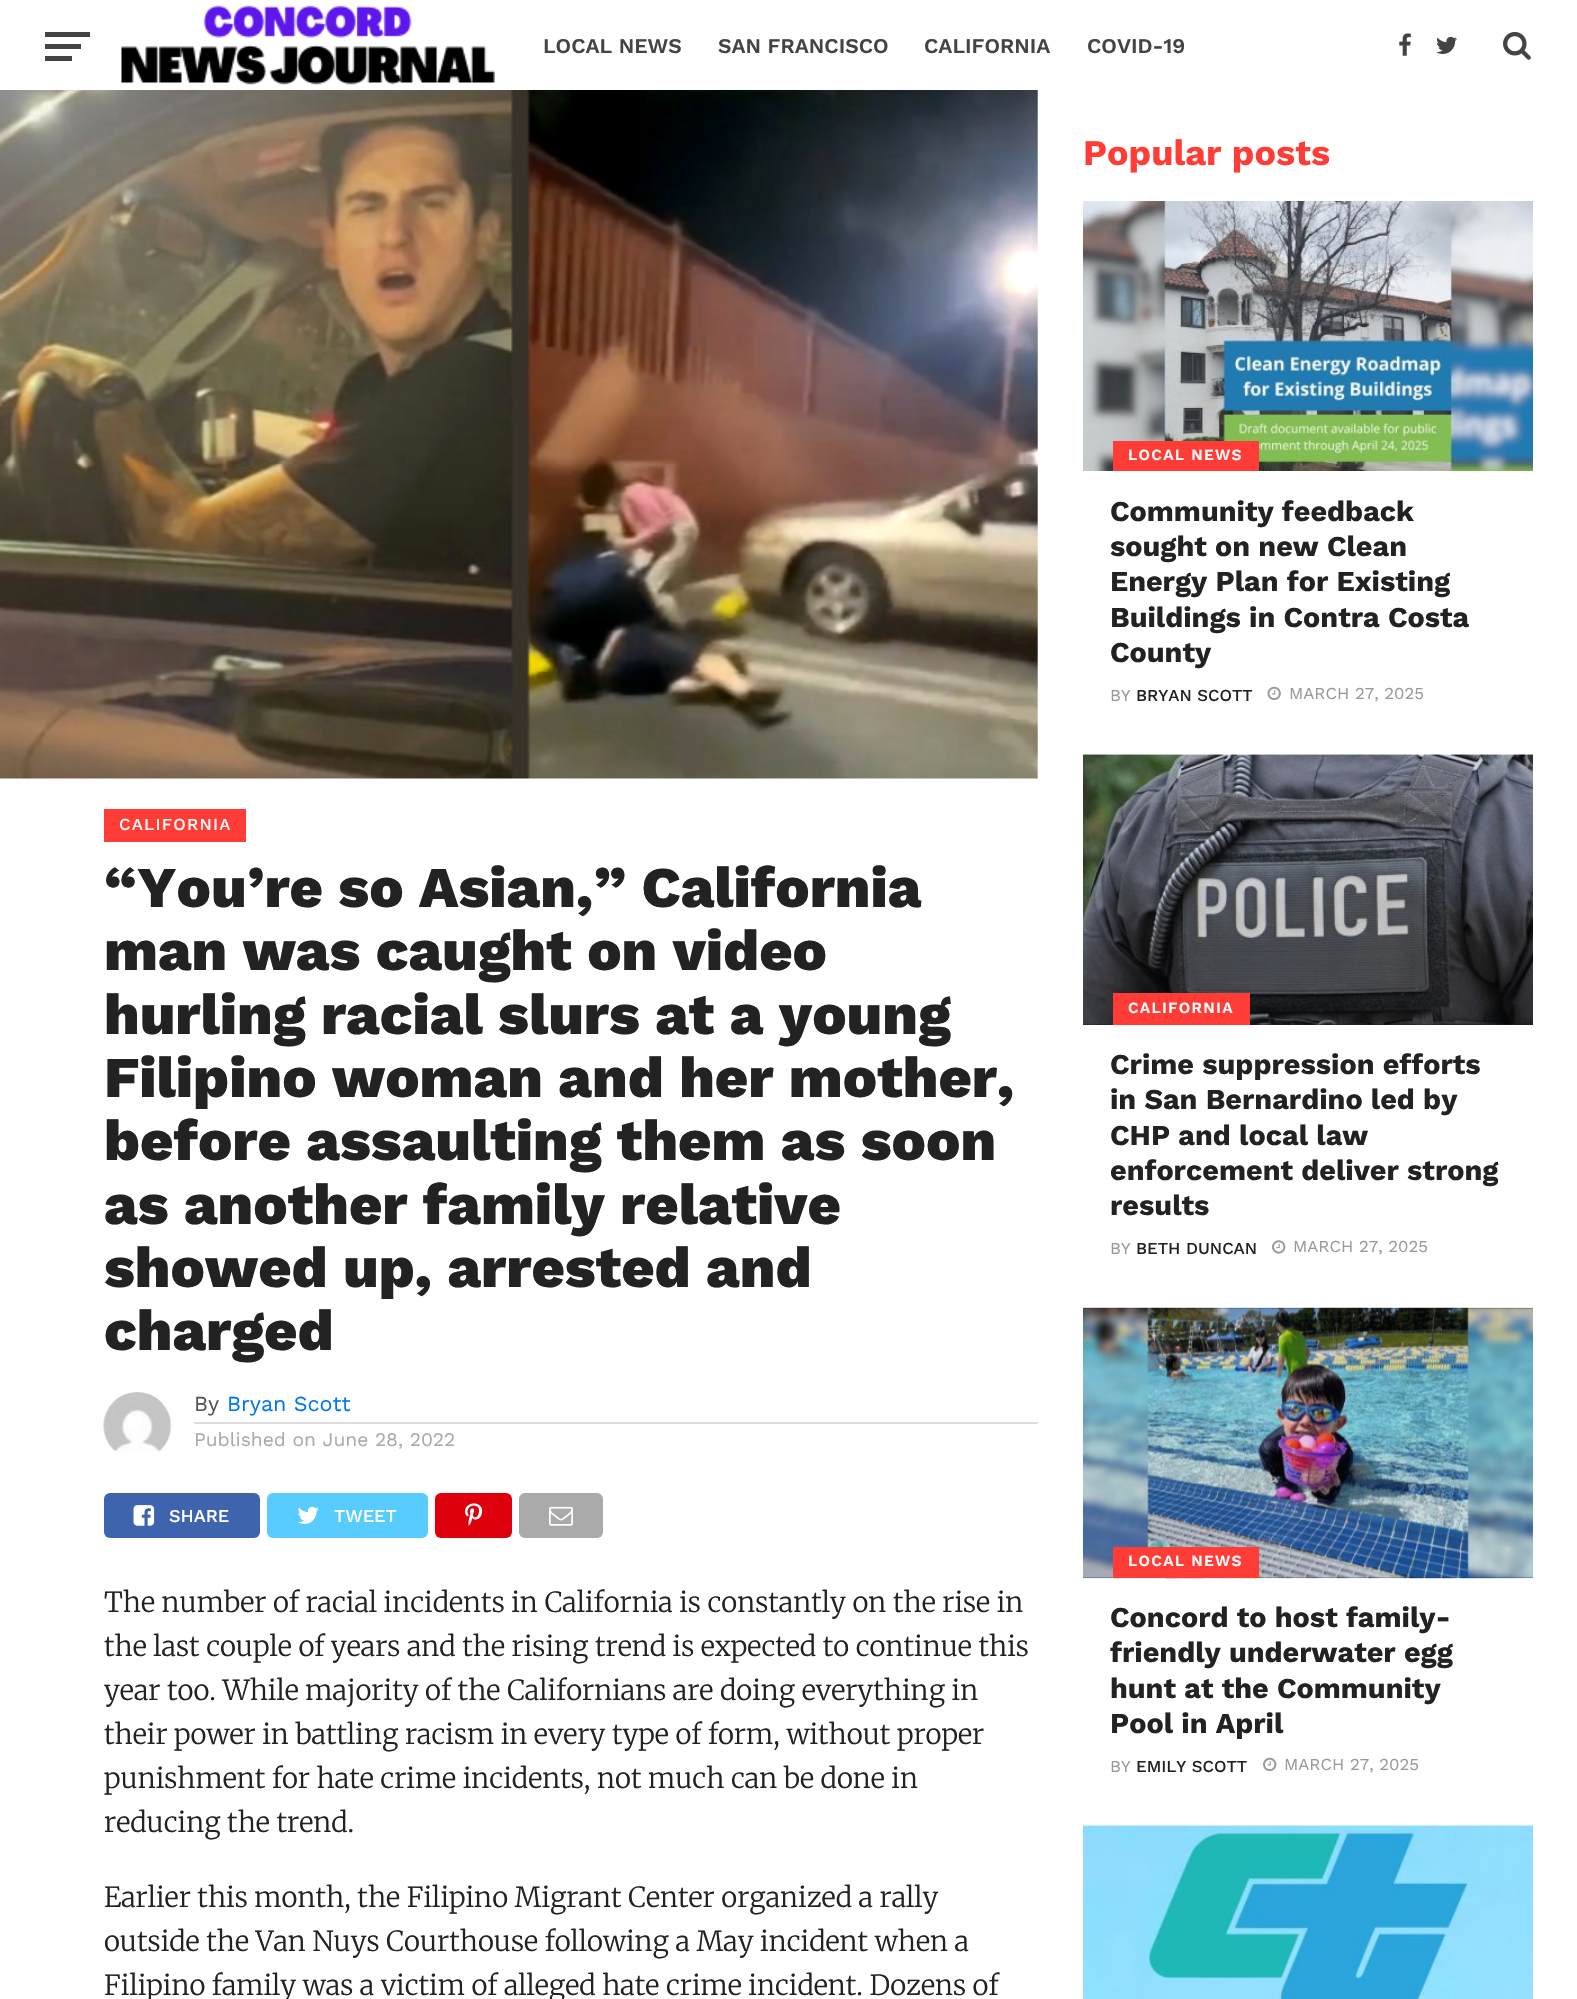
static SkFont makeFont(const char* family, int weight, float size, bool italic = false) {
  SkFontStyle style(weight, SkFontStyle::kNormal_Width,
    italic ? SkFontStyle::kItalic_Slant : SkFontStyle::kUpright_Slant);
  SkFont result(fontMgr->matchFamilyStyle(family, style), size);
  result.setSubpixel(true);
  return result;
}

static void text(SkCanvas* c, const char* s, float x, float y, const SkFont& font, SkColor color) {
  SkPaint ink(SkColor4f::FromColor(color));
  ink.setAntiAlias(true);
  c->drawString(s, x, y, font, ink);
}

static void spacedText(SkCanvas* c, const char* s, float x, float y, const SkFont& font, const SkPaint& ink, float letter, float word) {
  std::vector<SkGlyphID> glyphs(font.countText(s, strlen(s), SkTextEncoding::kUTF8));
  std::vector<float> xs(glyphs.size());
  font.textToGlyphs(s, strlen(s), SkTextEncoding::kUTF8, glyphs);
  font.getXPos(glyphs, xs, x);
  float extra = 0;
  for (size_t i = 0; i < glyphs.size(); i++) {
    xs[i] += extra;
    extra += letter + word * (glyphs[i] == font.unicharToGlyph(' '));
  }
  c->drawTextBlob(SkTextBlob::MakeFromPosHGlyphs(glyphs, xs, y, font), 0, 0, ink);
}

static void box(SkCanvas* c, float l, float t, float r, float b, SkColor color) {
  SkPaint ink(SkColor4f::FromColor(color));
  ink.setAntiAlias(true);
  c->drawRect(SkRect::MakeLTRB(l, t, r, b), ink);
}

static void roundBox(SkCanvas* c, float l, float t, float r, float b, float radius, SkColor color) {
  SkPaint ink(SkColor4f::FromColor(color));
  ink.setAntiAlias(true);
  c->drawRoundRect(SkRect::MakeLTRB(l, t, r, b), radius, radius, ink);
}

static void picture(SkCanvas* c, const char* path, float l, float t, float r, float b) {
  auto image = SkImages::DeferredFromEncodedData(SkData::MakeFromFileName(path));
  c->drawImageRect(image, SkRect::MakeLTRB(l, t, r, b), SkSamplingOptions());
}

void draw(SkCanvas* c) {
  SkPaint paint;
  paint.setAntiAlias(true);
  c->clear(0xffffffff);
  box(c, 45, 32, 90, 37, 0xff444444);
  box(c, 45, 44, 81, 49, 0xff444444);
  box(c, 45, 56, 72, 61, 0xff444444);
  picture(c, "img_01.png", 121, 5, 495, 85);
  SkFont face1 = makeFont("Work Sans", 600, 21);
  text(c, "LOCAL NEWS", 543, 53, face1, 0xff444444);
  text(c, "SAN FRANCISCO", 718, 53, face1, 0xff444444);
  text(c, "CALIFORNIA", 924, 53, face1, 0xff444444);
  text(c, "COVID-19", 1087, 53, face1, 0xff444444);
  picture(c, "img_02.png", 1399, 33, 1411, 56);
  picture(c, "img_03.png", 1436, 36, 1457, 54);
  picture(c, "img_04.png", 1503, 31, 1531, 60);
  picture(c, "img_05.png", 0, 90, 1038, 779);
  box(c, 104, 809, 246, 842, 0xffff3c36);
  SkFont face2 = makeFont("Work Sans", 500, 16.75f);
  paint.setColor(0xffffffff);
  spacedText(c, "CALIFORNIA", 119, 830, face2, paint, 1.25f, 0);
  SkFont face3 = makeFont("Work Sans", 800, 57.6f);
  text(c, "“You’re so Asian,” California", 104, 907, face3, 0xff222222);
  text(c, "man was caught on video", 104, 970, face3, 0xff222222);
  text(c, "hurling racial slurs at a young", 104, 1034, face3, 0xff222222);
  text(c, "Filipino woman and her mother,", 104, 1097, face3, 0xff222222);
  text(c, "before assaulting them as soon", 104, 1160, face3, 0xff222222);
  text(c, "as another family relative", 104, 1224, face3, 0xff222222);
  text(c, "showed up, arrested and", 104, 1287, face3, 0xff222222);
  text(c, "charged", 104, 1350, face3, 0xff222222);
  picture(c, "img_06.png", 103, 1392, 172, 1452);
  box(c, 194, 1422, 1038, 1424, 0xffdddddd);
  SkFont face4 = makeFont("Work Sans", 400, 21.5f);
  text(c, "By", 194, 1411, face4, 0xff555555);
  text(c, "Bryan Scott", 227, 1411, face4, 0xff0077ee);
  SkFont face5 = makeFont("Work Sans", 400, 19.25f);
  text(c, "Published on June 28, 2022", 194, 1446, face5, 0xffaaaaaa);
  roundBox(c, 104, 1493, 260, 1538, 6, 0xff3e64ad);
  picture(c, "img_07.png", 133, 1505, 155, 1526);
  SkFont face6 = makeFont("Work Sans", 500, 18);
  text(c, "SHARE", 169, 1522, face6, 0xffffffff);
  roundBox(c, 267, 1493, 428, 1538, 6, 0xff58ccff);
  picture(c, "img_08.png", 297, 1506, 319, 1524);
  text(c, "TWEET", 334, 1522, face6, 0xffffffff);
  roundBox(c, 435, 1493, 512, 1538, 6, 0xffde010d);
  picture(c, "img_09.png", 465, 1503, 483, 1526);
  roundBox(c, 519, 1493, 603, 1538, 6, 0xffaaaaaa);
  picture(c, "img_10.png", 549, 1506, 573, 1526);
  SkFont face7 = makeFont("Merriweather", 300, 27.6f);
  text(c, "The number of racial incidents in California is constantly on the rise in", 104, 1612, face7, 0xff222222);
  text(c, "the last couple of years and the rising trend is expected to continue this", 104, 1656, face7, 0xff222222);
  text(c, "year too. While majority of the Californians are doing everything in", 104, 1700, face7, 0xff222222);
  text(c, "their power in battling racism in every type of form, without proper", 104, 1744, face7, 0xff222222);
  text(c, "punishment for hate crime incidents, not much can be done in", 104, 1788, face7, 0xff222222);
  text(c, "reducing the trend.", 104, 1832, face7, 0xff222222);
  text(c, "Earlier this month, the Filipino Migrant Center organized a rally", 104, 1907, face7, 0xff222222);
  text(c, "outside the Van Nuys Courthouse following a May incident when a", 104, 1951, face7, 0xff222222);
  text(c, "Filipino family was a victim of alleged hate crime incident. Dozens of", 104, 1995, face7, 0xff222222);
  SkFont face8 = makeFont("Work Sans", 700, 36);
  text(c, "Popular posts", 1083, 165, face8, 0xffff3c36);
  picture(c, "img_11.png", 1083, 201, 1533, 471);
  box(c, 1113, 441, 1259, 471, 0xffff3c36);
  SkFont face9 = makeFont("Work Sans", 600, 15.5f);
  spacedText(c, "LOCAL NEWS", 1128, 460, face9, paint, 1.25f, 0);
  SkFont face10 = makeFont("Work Sans", 700, 28.75f);
  text(c, "Community feedback", 1110, 521, face10, 0xff222222);
  text(c, "sought on new Clean", 1110, 556, face10, 0xff222222);
  text(c, "Energy Plan for Existing", 1110, 591, face10, 0xff222222);
  text(c, "Buildings in Contra Costa", 1110, 627, face10, 0xff222222);
  text(c, "County", 1110, 662, face10, 0xff222222);
  SkFont face11 = makeFont("Work Sans", 400, 16.75f);
  text(c, "BY", 1110, 701, face11, 0xff999999);
  text(c, "BRYAN SCOTT", 1136, 701, face2, 0xff222222);
  picture(c, "img_12.png", 1267, 686, 1281, 701);
  text(c, "MARCH 27, 2025", 1289, 699, face11, 0xff999999);
  box(c, 1083, 755, 1533, 1025, 0xff222222);
  picture(c, "img_13.png", 1083, 754, 1533, 1025);
  box(c, 1113, 993, 1250, 1025, 0xffff3c36);
  spacedText(c, "CALIFORNIA", 1128, 1013, face9, paint, 1.25f, 0);
  text(c, "Crime suppression efforts", 1110, 1074, face10, 0xff222222);
  text(c, "in San Bernardino led by", 1110, 1109, face10, 0xff222222);
  text(c, "CHP and local law", 1110, 1145, face10, 0xff222222);
  text(c, "enforcement deliver strong", 1110, 1180, face10, 0xff222222);
  text(c, "results", 1110, 1215, face10, 0xff222222);
  text(c, "BY", 1110, 1254, face11, 0xff999999);
  text(c, "BETH DUNCAN", 1136, 1254, face2, 0xff222222);
  picture(c, "img_14.png", 1272, 1240, 1286, 1254);
  text(c, "MARCH 27, 2025", 1293, 1252, face11, 0xff999999);
  box(c, 1083, 1308, 1533, 1578, 0xff222222);
  picture(c, "img_15.png", 1083, 1307, 1533, 1579);
  box(c, 1113, 1547, 1259, 1578, 0xffff3c36);
  spacedText(c, "LOCAL NEWS", 1128, 1566, face9, paint, 1.25f, 0);
  text(c, "Concord to host family-", 1110, 1627, face10, 0xff222222);
  text(c, "friendly underwater egg", 1110, 1662, face10, 0xff222222);
  text(c, "hunt at the Community", 1110, 1698, face10, 0xff222222);
  text(c, "Pool in April", 1110, 1733, face10, 0xff222222);
  text(c, "BY", 1110, 1772, face11, 0xff999999);
  text(c, "EMILY SCOTT", 1136, 1772, face2, 0xff222222);
  picture(c, "img_16.png", 1263, 1757, 1277, 1772);
  text(c, "MARCH 27, 2025", 1284, 1770, face11, 0xff999999);
  picture(c, "img_17.png", 1083, 1825, 1533, 1999);
}
